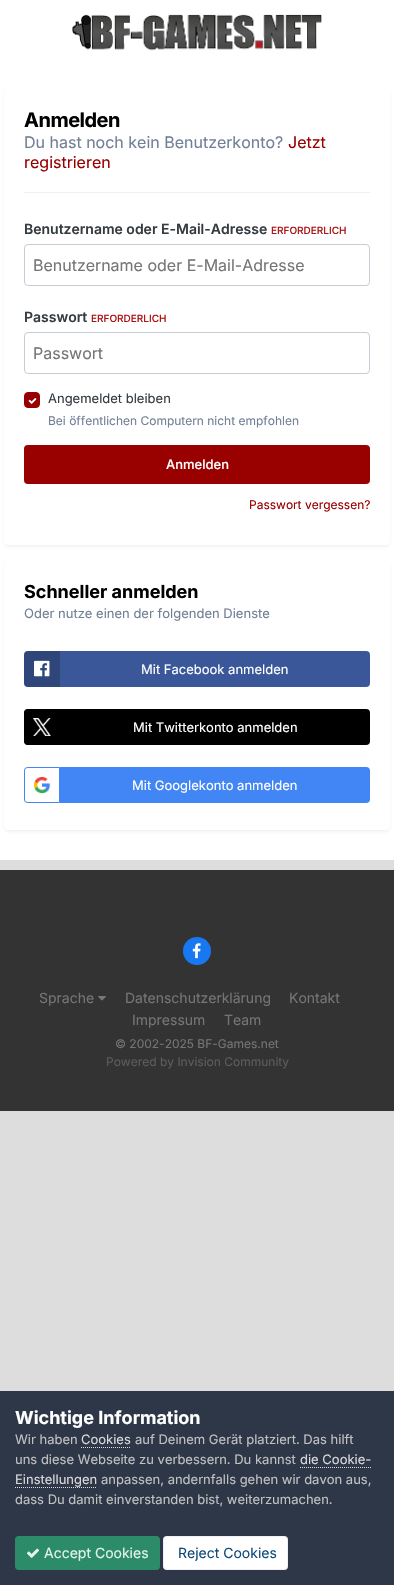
static SkFont makeFont(const char* family, int weight, float size, bool italic = false) {
  SkFontStyle style(weight, SkFontStyle::kNormal_Width,
    italic ? SkFontStyle::kItalic_Slant : SkFontStyle::kUpright_Slant);
  SkFont result(fontMgr->matchFamilyStyle(family, style), size);
  result.setSubpixel(true);
  return result;
}

static void text(SkCanvas* c, const char* s, float x, float y, const SkFont& font, SkColor color) {
  SkPaint ink(SkColor4f::FromColor(color));
  ink.setAntiAlias(true);
  c->drawString(s, x, y, font, ink);
}

static void spacedText(SkCanvas* c, const char* s, float x, float y, const SkFont& font, const SkPaint& ink, float letter, float word) {
  std::vector<SkGlyphID> glyphs(font.countText(s, strlen(s), SkTextEncoding::kUTF8));
  std::vector<float> xs(glyphs.size());
  font.textToGlyphs(s, strlen(s), SkTextEncoding::kUTF8, glyphs);
  font.getXPos(glyphs, xs, x);
  float extra = 0;
  for (size_t i = 0; i < glyphs.size(); i++) {
    xs[i] += extra;
    extra += letter + word * (glyphs[i] == font.unicharToGlyph(' '));
  }
  c->drawTextBlob(SkTextBlob::MakeFromPosHGlyphs(glyphs, xs, y, font), 0, 0, ink);
}

static void box(SkCanvas* c, float l, float t, float r, float b, SkColor color) {
  SkPaint ink(SkColor4f::FromColor(color));
  ink.setAntiAlias(true);
  c->drawRect(SkRect::MakeLTRB(l, t, r, b), ink);
}

static void roundBox(SkCanvas* c, float l, float t, float r, float b, float radius, SkColor color) {
  SkPaint ink(SkColor4f::FromColor(color));
  ink.setAntiAlias(true);
  c->drawRoundRect(SkRect::MakeLTRB(l, t, r, b), radius, radius, ink);
}

static void picture(SkCanvas* c, const char* path, float l, float t, float r, float b) {
  auto image = SkImages::DeferredFromEncodedData(SkData::MakeFromFileName(path));
  c->drawImageRect(image, SkRect::MakeLTRB(l, t, r, b), SkSamplingOptions());
}

void draw(SkCanvas* c) {
  SkPaint paint;
  paint.setAntiAlias(true);
  c->clear(0xffdddddd);
  box(c, 0, 0, 394, 860, 0xffffffff);
  picture(c, "img_01.png", 72, 14, 322, 51);
  paint.setColor(0x1a2d3748);
  paint.setMaskFilter(SkMaskFilter::MakeBlur(kNormal_SkBlurStyle, 2));
  c->drawRoundRect(SkRect::MakeLTRB(5, 91, 389, 546), 3, 3, paint);
  paint.setMaskFilter(nullptr);
  roundBox(c, 4, 88, 390, 545, 4, 0xffffffff);
  SkFont face1 = makeFont("Inter", 700, 20);
  paint.setColor(0xff000000);
  spacedText(c, "Anmelden", 24, 127, face1, paint, -0.5f, 0);
  SkFont face2 = makeFont("Inter", 400, 16);
  text(c, "Du hast noch kein Benutzerkonto?", 24, 148, face2, 0xff718096);
  text(c, "Jetzt", 288, 148, face2, 0xff990000);
  text(c, "registrieren", 24, 168, face2, 0xff990000);
  box(c, 24, 192, 370, 193, 0xffefeff0);
  SkFont face3 = makeFont("Inter", 600, 14);
  text(c, "Benutzername oder E-Mail-Adresse", 24, 234, face3, 0xff353c41);
  SkFont face4 = makeFont("Inter", 500, 10);
  text(c, "ERFORDERLICH", 271, 234, face4, 0xffaa1414);
  paint.setStyle(SkPaint::kStroke_Style);
  paint.setStrokeWidth(1);
  paint.setColor(0xffc6ccd5);
  c->drawRoundRect(SkRect::MakeLTRB(24.5f, 244.5f, 369.5f, 285.5f), 3.5f, 3.5f, paint);
  text(c, "Benutzername oder E-Mail-Adresse", 33, 271, face2, 0xff757575);
  text(c, "Passwort", 24, 322, face3, 0xff353c41);
  text(c, "ERFORDERLICH", 91, 322, face4, 0xffaa1414);
  c->drawRoundRect(SkRect::MakeLTRB(24.5f, 332.5f, 369.5f, 373.5f), 3.5f, 3.5f, paint);
  text(c, "Passwort", 33, 359, face2, 0xff757575);
  paint.setStyle(SkPaint::kFill_Style);
  paint.setColor(0xff960002);
  c->drawRoundRect(SkRect::MakeLTRB(24.5f, 392.5f, 39.5f, 407.5f), 3.5f, 3.5f, paint);
  paint.setStyle(SkPaint::kStroke_Style);
  c->drawRoundRect(SkRect::MakeLTRB(24.5f, 392.5f, 39.5f, 407.5f), 3.5f, 3.5f, paint);
  picture(c, "img_02.png", 28, 398, 37, 404);
  SkFont face5 = makeFont("Inter", 400, 13);
  text(c, "Angemeldet bleiben", 48, 403, face5, 0xff353c41);
  SkFont face6 = makeFont("Inter", 400, 12);
  text(c, "Bei öffentlichen Computern nicht empfohlen", 48, 425, face6, 0xff718096);
  roundBox(c, 24, 445, 370, 484, 4, 0xff990000);
  SkFont face7 = makeFont("Inter", 500, 13);
  text(c, "Anmelden", 166, 469, face7, 0xffffffff);
  text(c, "Passwort vergessen?", 249, 509, face6, 0xff990000);
  paint.setStyle(SkPaint::kFill_Style);
  paint.setColor(0x1a2d3748);
  paint.setMaskFilter(SkMaskFilter::MakeBlur(kNormal_SkBlurStyle, 2));
  c->drawRoundRect(SkRect::MakeLTRB(5, 563, 389, 831), 3, 3, paint);
  paint.setMaskFilter(nullptr);
  roundBox(c, 4, 560, 390, 830, 4, 0xffffffff);
  SkFont face8 = makeFont("Inter", 700, 18);
  text(c, "Schneller anmelden", 24, 598, face8, 0xff000000);
  text(c, "Oder nutze einen der folgenden Dienste", 24, 618, face5, 0xff718096);
  roundBox(c, 24, 651, 370, 687, 4, 0xff3a579a);
  paint.setColor(0x33000000);
  c->drawPath(SkPathBuilder().moveTo(28, 651).lineTo(60, 651).lineTo(60, 687).lineTo(28, 687).cubicTo(26, 687, 24, 685, 24, 683).lineTo(24, 655).cubicTo(24, 653, 26, 651, 28, 651).close().detach(), paint);
  picture(c, "img_03.png", 34, 660, 50, 677);
  text(c, "Mit Facebook anmelden", 141, 674, face5, 0xffffffff);
  roundBox(c, 24, 709, 370, 745, 4, 0xff000000);
  paint.setColor(0xff000000);
  c->drawPath(SkPathBuilder().moveTo(28, 709).lineTo(60, 709).lineTo(60, 745).lineTo(28, 745).cubicTo(26, 745, 24, 743, 24, 741).lineTo(24, 713).cubicTo(24, 711, 26, 709, 28, 709).close().detach(), paint);
  picture(c, "img_04.png", 33, 718, 51, 736);
  text(c, "Mit Twitterkonto anmelden", 133, 732, face5, 0xffffffff);
  roundBox(c, 24, 767, 370, 803, 4, 0xff4285f4);
  paint.setColor(0xffffffff);
  c->drawPath(SkPathBuilder().moveTo(28, 767).lineTo(60, 767).lineTo(60, 803).lineTo(28, 803).cubicTo(26, 803, 24, 801, 24, 799).lineTo(24, 771).cubicTo(24, 769, 26, 767, 28, 767).close().detach(), paint);
  picture(c, "img_05.png", 34, 777, 51, 794);
  paint.setStyle(SkPaint::kStroke_Style);
  paint.setColor(0xff4285f4);
  c->drawPath(SkPathBuilder().moveTo(28, 767.5f).lineTo(59.5f, 767.5f).lineTo(59.5f, 802.5f).lineTo(28, 802.5f).cubicTo(26, 802.5f, 24.5f, 801, 24.5f, 799).lineTo(24.5f, 771).cubicTo(24.5f, 769, 26, 767.5f, 28, 767.5f).close().detach(), paint);
  text(c, "Mit Googlekonto anmelden", 132, 790, face5, 0xffffffff);
  box(c, 0, 870, 394, 1111, 0xff333333);
  paint.setStyle(SkPaint::kFill_Style);
  paint.setColor(0xff1778f2);
  c->drawCircle(197, 951, 14, paint);
  picture(c, "img_06.png", 192, 943, 201, 959);
  SkFont face9 = makeFont("Inter", 400, 14);
  text(c, "Sprache", 39, 1003, face9, 0xff757575);
  picture(c, "img_07.png", 98, 996, 106, 1001);
  text(c, "Datenschutzerklärung", 125, 1003, face9, 0xff757575);
  text(c, "Kontakt", 289, 1003, face9, 0xff757575);
  text(c, "Impressum", 132, 1025, face9, 0xff757575);
  text(c, "Team", 224, 1025, face9, 0xff757575);
  text(c, "© 2002-2025 BF-Games.net", 115, 1048, face6, 0xff757575);
  text(c, "Powered by Invision Community", 106, 1066, face6, 0xff5c5c5c);
  box(c, 0, 1391, 394, 1585, 0xff2d3748);
  text(c, "Wichtige Information", 15, 1424, face8, 0xffffffff);
  text(c, "Wir haben", 15, 1444, face5, 0xffc0c0c0);
  text(c, "Cookies", 81, 1444, face5, 0xffdadada);
  paint.setStyle(SkPaint::kStroke_Style);
  paint.setColor(0xffdadada);
  paint.setPathEffect(SkDashPathEffect::Make({{1, 1}}, 0));
  c->drawPath(SkPathBuilder().moveTo(81, 1447.5f).lineTo(131, 1447.5f).detach(), paint);
  paint.setPathEffect(nullptr);
  text(c, "auf Deinem Gerät platziert. Das hilft", 135, 1444, face5, 0xffc0c0c0);
  text(c, "uns diese Webseite zu verbessern. Du kannst", 15, 1464, face5, 0xffc0c0c0);
  text(c, "die Cookie-", 300, 1464, face5, 0xffdadada);
  paint.setPathEffect(SkDashPathEffect::Make({{1, 1}}, 0));
  c->drawPath(SkPathBuilder().moveTo(300, 1467.5f).lineTo(371, 1467.5f).detach(), paint);
  paint.setPathEffect(nullptr);
  text(c, "Einstellungen", 15, 1484, face5, 0xffdadada);
  paint.setPathEffect(SkDashPathEffect::Make({{1, 1}}, 0));
  c->drawPath(SkPathBuilder().moveTo(15, 1487.5f).lineTo(97, 1487.5f).detach(), paint);
  paint.setPathEffect(nullptr);
  text(c, "anpassen, andernfalls gehen wir davon aus,", 101, 1484, face5, 0xffc0c0c0);
  text(c, "dass Du damit einverstanden bist, weiterzumachen.", 15, 1504, face5, 0xffc0c0c0);
  roundBox(c, 15, 1536, 160, 1570, 4, 0xff2c8c69);
  picture(c, "img_08.png", 27, 1548, 39, 1558);
  text(c, "Accept Cookies", 44, 1558, face9, 0xffe3f3ec);
  roundBox(c, 163, 1536, 288, 1570, 4, 0xffffffff);
  paint.setColor(0x120e4c79);
  c->drawRoundRect(SkRect::MakeLTRB(163.5f, 1536.5f, 287.5f, 1569.5f), 3.5f, 3.5f, paint);
  text(c, "Reject Cookies", 178, 1558, face9, 0xff0e4c79);
}
